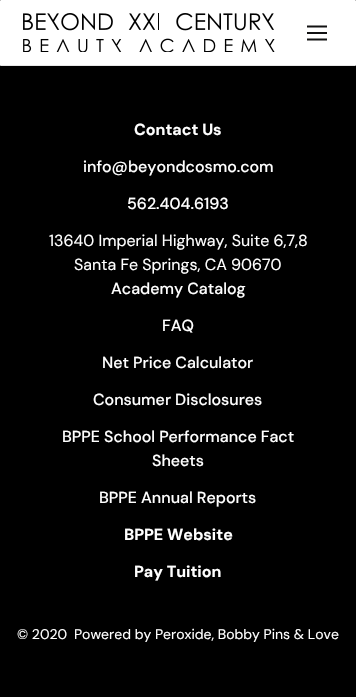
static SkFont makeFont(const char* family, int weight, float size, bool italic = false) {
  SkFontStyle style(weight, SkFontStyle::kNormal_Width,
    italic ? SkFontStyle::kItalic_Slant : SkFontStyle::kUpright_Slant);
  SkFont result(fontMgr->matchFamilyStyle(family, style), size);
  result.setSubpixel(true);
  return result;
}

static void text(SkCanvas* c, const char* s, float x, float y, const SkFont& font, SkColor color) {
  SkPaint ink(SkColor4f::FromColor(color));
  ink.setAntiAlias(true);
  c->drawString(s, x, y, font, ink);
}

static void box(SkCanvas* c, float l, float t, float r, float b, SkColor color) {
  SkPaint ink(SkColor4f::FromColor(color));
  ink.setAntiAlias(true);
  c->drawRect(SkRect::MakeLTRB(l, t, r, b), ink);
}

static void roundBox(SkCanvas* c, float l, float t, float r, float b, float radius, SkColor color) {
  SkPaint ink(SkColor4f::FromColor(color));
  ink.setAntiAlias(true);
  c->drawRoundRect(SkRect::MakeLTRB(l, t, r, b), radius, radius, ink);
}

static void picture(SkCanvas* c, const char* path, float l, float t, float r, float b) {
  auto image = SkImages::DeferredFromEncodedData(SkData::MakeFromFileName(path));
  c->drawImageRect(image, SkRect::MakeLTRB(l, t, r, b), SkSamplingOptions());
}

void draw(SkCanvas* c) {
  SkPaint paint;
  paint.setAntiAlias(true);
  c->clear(0xff000000);
  roundBox(c, 0, 0, 356, 66, 1, 0xffffffff);
  box(c, 1, 65, 356, 66, 0x1a111112);
  picture(c, "img_01.png", 23, 13, 275, 52);
  box(c, 307, 32, 327, 34, 0xff111112);
  paint.setStyle(SkPaint::kStroke_Style);
  paint.setStrokeWidth(2);
  paint.setColor(0xff111112);
  c->drawPath(SkPathBuilder().moveTo(307, 26.5f).lineTo(327, 26.5f).moveTo(307, 39.5f).lineTo(327, 39.5f).detach(), paint);
  SkFont face1 = makeFont("DM Sans", 700, 16);
  text(c, "Contact Us", 134, 135, face1, 0xffffffff);
  SkFont face2 = makeFont("DM Sans", 500, 16);
  text(c, "info@beyondcosmo.com", 83, 172, face2, 0xffffffff);
  text(c, "562.404.6193", 127, 209, face2, 0xffffffff);
  SkFont face3 = makeFont("DM Sans", 400, 16);
  text(c, "13640 Imperial Highway, Suite 6,7,8", 49, 246, face3, 0xffffffff);
  text(c, "Santa Fe Springs, CA 90670", 74, 270, face3, 0xffffffff);
  text(c, "Academy Catalog", 111, 294, face2, 0xffffffff);
  text(c, "FAQ", 162, 331, face2, 0xffffffff);
  text(c, "Net Price Calculator", 102, 368, face2, 0xffffffff);
  text(c, "Consumer Disclosures", 93, 405, face2, 0xffffffff);
  text(c, "BPPE School Performance Fact", 62, 442, face2, 0xffffffff);
  text(c, "Sheets", 152, 466, face2, 0xffffffff);
  text(c, "BPPE Annual Reports", 99, 503, face2, 0xffffffff);
  text(c, "BPPE Website", 124, 540, face1, 0xffffffff);
  text(c, "Pay Tuition", 134, 577, face1, 0xffffffff);
  SkFont face4 = makeFont("DM Sans", 400, 14);
  text(c, "© 2020", 17, 639, face4, 0xffffffff);
  text(c, "Powered by Peroxide, Bobby Pins & Love", 74, 639, face4, 0xffffffff);
}
